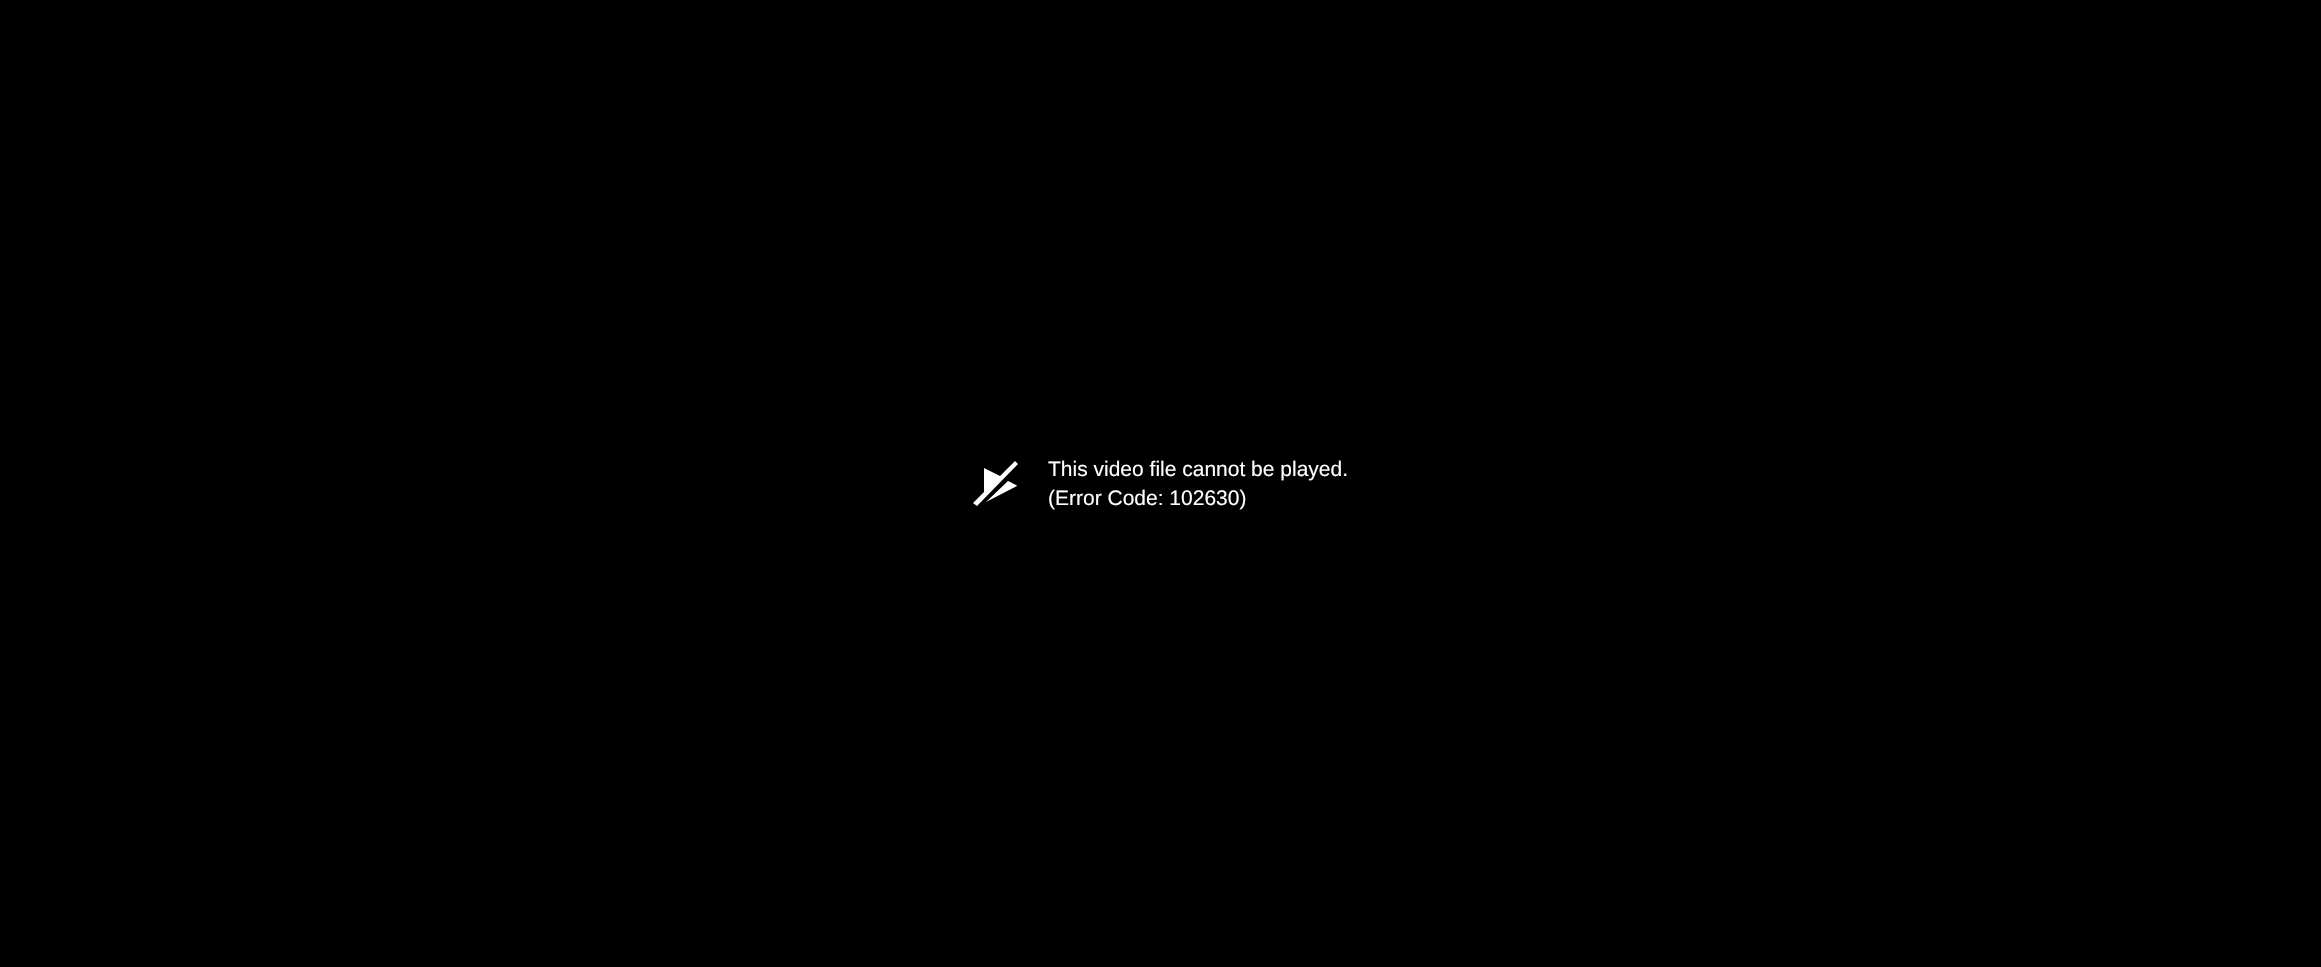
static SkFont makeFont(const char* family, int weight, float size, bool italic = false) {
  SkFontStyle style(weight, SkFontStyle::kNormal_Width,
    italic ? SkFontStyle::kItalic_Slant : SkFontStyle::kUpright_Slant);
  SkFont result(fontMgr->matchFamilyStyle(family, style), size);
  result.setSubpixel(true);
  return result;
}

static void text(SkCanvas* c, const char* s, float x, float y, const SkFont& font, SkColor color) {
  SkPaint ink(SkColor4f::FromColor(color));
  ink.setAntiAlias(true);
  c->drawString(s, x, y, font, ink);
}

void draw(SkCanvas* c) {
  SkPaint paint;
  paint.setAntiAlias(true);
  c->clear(0xff000000);
  paint.setColor(0xffffffff);
  c->drawPath(SkPathBuilder().moveTo(1017, 486).lineTo(986, 502).lineTo(1008, 481).cubicTo(1016, 485, 1018, 486, 1017, 486).close().moveTo(1015, 461).lineTo(1000, 476).lineTo(984, 468).lineTo(984, 492).lineTo(973, 503).lineTo(977, 506).lineTo(1018, 464).close().detach(), paint);
  SkFont face1 = makeFont("Liberation Sans", 400, 21);
  text(c, "This video file cannot be played.", 1048, 476, face1, 0xffffffff);
  text(c, "(Error Code: 102630)", 1048, 505, face1, 0xffffffff);
}
